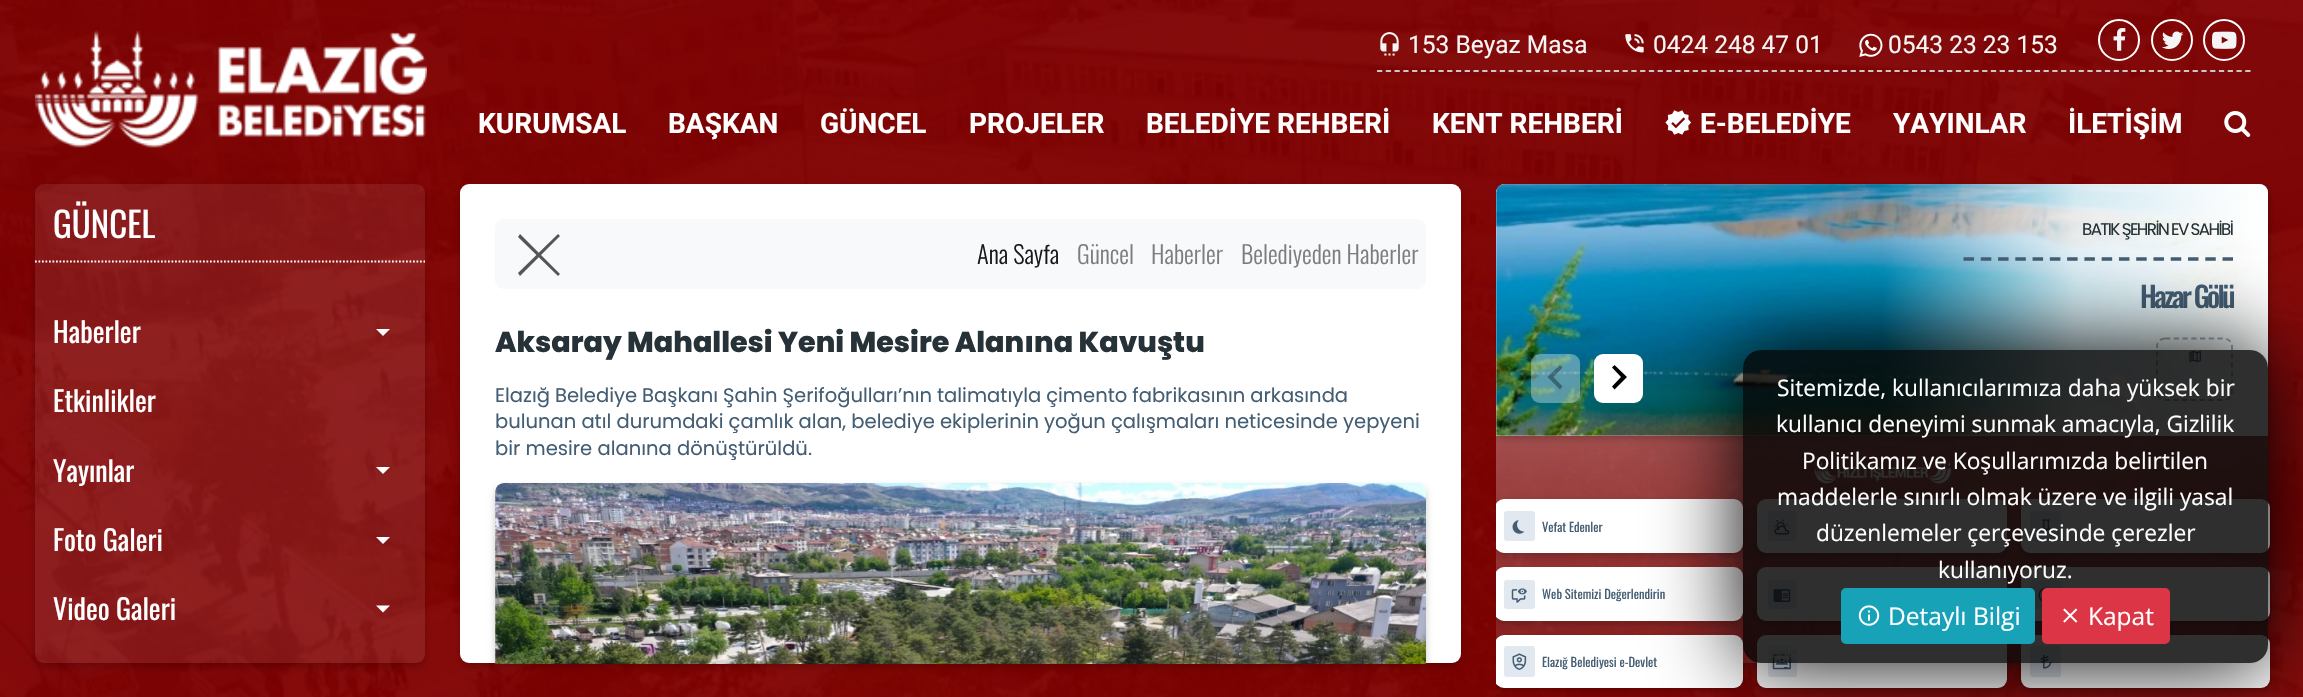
static SkFont makeFont(const char* family, int weight, float size, bool italic = false) {
  SkFontStyle style(weight, SkFontStyle::kNormal_Width,
    italic ? SkFontStyle::kItalic_Slant : SkFontStyle::kUpright_Slant);
  SkFont result(fontMgr->matchFamilyStyle(family, style), size);
  result.setSubpixel(true);
  return result;
}

static void text(SkCanvas* c, const char* s, float x, float y, const SkFont& font, SkColor color) {
  SkPaint ink(SkColor4f::FromColor(color));
  ink.setAntiAlias(true);
  c->drawString(s, x, y, font, ink);
}

static void spacedText(SkCanvas* c, const char* s, float x, float y, const SkFont& font, const SkPaint& ink, float letter, float word) {
  std::vector<SkGlyphID> glyphs(font.countText(s, strlen(s), SkTextEncoding::kUTF8));
  std::vector<float> xs(glyphs.size());
  font.textToGlyphs(s, strlen(s), SkTextEncoding::kUTF8, glyphs);
  font.getXPos(glyphs, xs, x);
  float extra = 0;
  for (size_t i = 0; i < glyphs.size(); i++) {
    xs[i] += extra;
    extra += letter + word * (glyphs[i] == font.unicharToGlyph(' '));
  }
  c->drawTextBlob(SkTextBlob::MakeFromPosHGlyphs(glyphs, xs, y, font), 0, 0, ink);
}

static void roundBox(SkCanvas* c, float l, float t, float r, float b, float radius, SkColor color) {
  SkPaint ink(SkColor4f::FromColor(color));
  ink.setAntiAlias(true);
  c->drawRoundRect(SkRect::MakeLTRB(l, t, r, b), radius, radius, ink);
}

static void picture(SkCanvas* c, const char* path, float l, float t, float r, float b) {
  auto image = SkImages::DeferredFromEncodedData(SkData::MakeFromFileName(path));
  c->drawImageRect(image, SkRect::MakeLTRB(l, t, r, b), SkSamplingOptions());
}

void draw(SkCanvas* c) {
  SkPaint paint;
  paint.setAntiAlias(true);
  c->clear(0xffffffff);
  picture(c, "img_01.png", 0, 0, 2303, 697);
  picture(c, "img_02.png", 35, 30, 427, 148);
  paint.setStyle(SkPaint::kStroke_Style);
  paint.setStrokeWidth(1.8f);
  paint.setColor(0xffc8c8c8);
  paint.setPathEffect(SkDashPathEffect::Make({{5.25f, 3.52f}}, 0));
  c->drawPath(SkPathBuilder().moveTo(1377, 71).lineTo(2250.5f, 71).detach(), paint);
  paint.setPathEffect(nullptr);
  picture(c, "img_03.png", 1380, 32, 1399, 56);
  SkFont face1 = makeFont("Roboto", 400, 24.5f);
  text(c, "153 Beyaz Masa", 1408, 53, face1, 0xfff5f5f5);
  picture(c, "img_04.png", 1625, 34, 1644, 53);
  text(c, "0424 248 47 01", 1653, 53, face1, 0xfff5f5f5);
  picture(c, "img_05.png", 1859, 33, 1883, 57);
  text(c, "0543 23 23 153", 1888, 53, face1, 0xfff5f5f5);
  paint.setStrokeWidth(2);
  paint.setColor(0xffffffff);
  c->drawCircle(2119, 40, 20, paint);
  picture(c, "img_06.png", 2113, 28, 2126, 51);
  c->drawCircle(2172, 40, 20, paint);
  picture(c, "img_07.png", 2162, 31, 2184, 49);
  c->drawCircle(2224, 40, 20, paint);
  picture(c, "img_08.png", 2212, 31, 2237, 49);
  SkFont face2 = makeFont("Roboto", 700, 28);
  text(c, "KURUMSAL", 478, 133, face2, 0xffffffff);
  text(c, "BAŞKAN", 668, 133, face2, 0xffffffff);
  text(c, "GÜNCEL", 820, 133, face2, 0xffffffff);
  text(c, "PROJELER", 969, 133, face2, 0xffffffff);
  text(c, "BELEDİYE REHBERİ", 1146, 133, face2, 0xffffffff);
  text(c, "KENT REHBERİ", 1432, 133, face2, 0xffffffff);
  picture(c, "img_09.png", 1665, 110, 1691, 135);
  text(c, "E-BELEDİYE", 1700, 133, face2, 0xffffffff);
  text(c, "YAYINLAR", 1893, 133, face2, 0xffffffff);
  text(c, "İLETİŞİM", 2068, 133, face2, 0xffffffff);
  picture(c, "img_10.png", 2224, 111, 2251, 137);
  c->save();
  c->clipPath(SkPathBuilder(SkPathFillType::kEvenOdd).moveTo(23, 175).lineTo(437, 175).lineTo(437, 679).lineTo(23, 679).close().moveTo(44, 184).lineTo(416, 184).cubicTo(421, 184, 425, 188, 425, 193).lineTo(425, 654).cubicTo(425, 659, 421, 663, 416, 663).lineTo(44, 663).cubicTo(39, 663, 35, 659, 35, 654).lineTo(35, 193).cubicTo(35, 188, 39, 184, 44, 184).close().detach(), true);
  paint.setStyle(SkPaint::kFill_Style);
  paint.setColor(0x33000000);
  paint.setMaskFilter(SkMaskFilter::MakeBlur(kNormal_SkBlurStyle, 3.5f));
  c->drawRoundRect(SkRect::MakeLTRB(35, 187, 425, 667), 9, 9, paint);
  paint.setMaskFilter(nullptr);
  c->restore();
  roundBox(c, 35, 184, 425, 663, 9, 0x14ffffff);
  paint.setStyle(SkPaint::kStroke_Style);
  paint.setStrokeWidth(1.8f);
  paint.setColor(0xffffffff);
  paint.setPathEffect(SkDashPathEffect::Make({{1.75f, 1.75f}}, 0));
  c->drawPath(SkPathBuilder().moveTo(35, 261.5f).lineTo(425, 261.5f).detach(), paint);
  paint.setPathEffect(nullptr);
  SkFont face3 = makeFont("Oswald", 400, 35);
  text(c, "GÜNCEL", 53, 238, face3, 0xffffffff);
  SkFont face4 = makeFont("Oswald", 400, 28);
  text(c, "Haberler", 53, 343, face4, 0xffffffff);
  paint.setStyle(SkPaint::kFill_Style);
  c->drawPath(SkPathBuilder().moveTo(376, 329).lineTo(390, 329).lineTo(383, 336).close().detach(), paint);
  text(c, "Etkinlikler", 53, 412, face4, 0xffffffff);
  text(c, "Yayınlar", 53, 482, face4, 0xffffffff);
  c->drawPath(SkPathBuilder().moveTo(376, 467).lineTo(390, 467).lineTo(383, 474).close().detach(), paint);
  text(c, "Foto Galeri", 53, 551, face4, 0xffffffff);
  c->drawPath(SkPathBuilder().moveTo(376, 537).lineTo(390, 537).lineTo(383, 544).close().detach(), paint);
  text(c, "Video Galeri", 53, 620, face4, 0xffffffff);
  c->drawPath(SkPathBuilder().moveTo(376, 605.5f).lineTo(390, 605.5f).lineTo(383, 612.5f).close().detach(), paint);
  paint.setColor(0x33000000);
  paint.setMaskFilter(SkMaskFilter::MakeBlur(kNormal_SkBlurStyle, 3.5f));
  c->drawRoundRect(SkRect::MakeLTRB(460, 187, 1461, 667), 9, 9, paint);
  paint.setMaskFilter(nullptr);
  roundBox(c, 460, 184, 1461, 663, 9, 0xffffffff);
  roundBox(c, 495, 219, 1426, 289, 9, 0xfff8f9fa);
  paint.setColor(0xff555555);
  c->drawPath(SkPathBuilder().moveTo(520, 234).lineTo(560, 274).lineTo(558, 276).lineTo(518, 237).close().detach(), paint);
  c->drawPath(SkPathBuilder().moveTo(518, 273).lineTo(558, 234).lineTo(560, 236).lineTo(520, 276).close().detach(), paint);
  SkFont face5 = makeFont("Oswald", 300, 24.5f);
  text(c, "Ana Sayfa", 977, 264, face5, 0xff191919);
  text(c, "Güncel", 1077, 264, face5, 0xff7c7d7d);
  text(c, "Haberler", 1151, 264, face5, 0xff7c7d7d);
  text(c, "Belediyeden Haberler", 1241, 264, face5, 0xff7c7d7d);
  SkFont face6 = makeFont("Poppins", 800, 28.6f);
  paint.setColor(0xff263238);
  spacedText(c, "Aksaray Mahallesi Yeni Mesire Alanına Kavuştu", 495, 352, face6, paint, 0, -0.1f);
  SkFont face7 = makeFont("Poppins", 400, 19.55f);
  paint.setColor(0xff435d73);
  spacedText(c, "Elazığ Belediye Başkanı Şahin Şerifoğulları’nın talimatıyla çimento fabrikasının arkasında", 495, 402, face7, paint, 0, -0.25f);
  spacedText(c, "bulunan atıl durumdaki çamlık alan, belediye ekiplerinin yoğun çalışmaları neticesinde yepyeni", 495, 428, face7, paint, 0, -0.1f);
  text(c, "bir mesire alanına dönüştürüldü.", 495, 455, face7, 0xff435d73);
  c->save();
  c->clipPath(SkPathBuilder().moveTo(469, 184).lineTo(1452, 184).cubicTo(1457, 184, 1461, 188, 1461, 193).lineTo(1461, 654).cubicTo(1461, 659, 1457, 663, 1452, 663).lineTo(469, 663).cubicTo(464, 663, 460, 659, 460, 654).lineTo(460, 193).cubicTo(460, 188, 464, 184, 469, 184).close().detach(), true);
  paint.setColor(0x33000000);
  paint.setMaskFilter(SkMaskFilter::MakeBlur(kNormal_SkBlurStyle, 3.5f));
  c->drawRoundRect(SkRect::MakeLTRB(495, 487, 1426, 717), 9, 9, paint);
  paint.setMaskFilter(nullptr);
  c->restore();
  picture(c, "img_11.png", 495, 483, 1426, 664);
  c->save();
  c->clipRect(SkRect::MakeLTRB(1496, 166, 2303, 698));
  c->clipPath(SkPathBuilder(SkPathFillType::kEvenOdd).moveTo(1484, 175).lineTo(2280, 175).lineTo(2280, 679).lineTo(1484, 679).close().moveTo(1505, 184).lineTo(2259, 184).cubicTo(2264, 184, 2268, 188, 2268, 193).lineTo(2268, 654).cubicTo(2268, 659, 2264, 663, 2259, 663).lineTo(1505, 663).cubicTo(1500, 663, 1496, 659, 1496, 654).lineTo(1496, 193).cubicTo(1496, 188, 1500, 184, 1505, 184).close().detach(), true);
  paint.setMaskFilter(SkMaskFilter::MakeBlur(kNormal_SkBlurStyle, 3.5f));
  c->drawRoundRect(SkRect::MakeLTRB(1496, 187, 2268, 667), 9, 9, paint);
  paint.setMaskFilter(nullptr);
  c->restore();
  {
    const SkColor colors[] = {0x8cffffff, 0x4dffffff, 0x1affffff};
    const float stops[] = {0, 0.5f, 1};
    const SkPoint ends[] = {{1882, 184}, {1882, 663}};
    paint.setShader(SkGradientShader::MakeLinear(ends, colors, stops, 3, SkTileMode::kClamp));
    paint.setAlpha(255);
  }
  c->drawRoundRect(SkRect::MakeLTRB(1496, 184, 2268, 663), 9, 9, paint);
  c->save();
  c->clipRect(SkRect::MakeLTRB(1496, 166, 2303, 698));
  paint.setShader(nullptr);
  paint.setColor(0x33000000);
  paint.setMaskFilter(SkMaskFilter::MakeBlur(kNormal_SkBlurStyle, 3.5f));
  c->drawRoundRect(SkRect::MakeLTRB(1496, 187, 2268, 439), 9, 9, paint);
  paint.setMaskFilter(nullptr);
  c->restore();
  paint.setColor(0xffffffff);
  c->drawPath(SkPathBuilder().moveTo(1505, 184).lineTo(2259, 184).cubicTo(2264, 184, 2268, 188, 2268, 193).lineTo(2268, 436).lineTo(1496, 436).lineTo(1496, 193).cubicTo(1496, 188, 1500, 184, 1505, 184).close().detach(), paint);
  picture(c, "img_12.png", 1496, 184, 2268, 436);
  {
    const SkColor colors[] = {0xffffffff, 0xd1ffffff, 0x00ffffff};
    const float stops[] = {0, 0.5f, 1};
    const SkPoint ends[] = {{2268, 310}, {1883, 310}};
    paint.setShader(SkGradientShader::MakeLinear(ends, colors, stops, 3, SkTileMode::kClamp));
    paint.setAlpha(255);
  }
  c->drawPath(SkPathBuilder().moveTo(1883, 184).lineTo(2259, 184).cubicTo(2264, 184, 2268, 188, 2268, 193).lineTo(2268, 436).lineTo(1883, 436).close().detach(), paint);
  paint.setStyle(SkPaint::kStroke_Style);
  paint.setStrokeWidth(3.5f);
  paint.setShader(nullptr);
  paint.setColor(0xff435d73);
  paint.setPathEffect(SkDashPathEffect::Make({{10.5f, 6.77f}}, 0));
  c->drawPath(SkPathBuilder().moveTo(1963.5f, 259).lineTo(2233, 259).detach(), paint);
  paint.setPathEffect(nullptr);
  SkFont face8 = makeFont("Poppins", 400, 16.75f);
  paint.setStyle(SkPaint::kFill_Style);
  paint.setColor(0xff263238);
  spacedText(c, "BATIK ŞEHRİN EV SAHİBİ", 2082, 235, face8, paint, -1.6f, 0);
  SkFont face9 = makeFont("Oswald", 500, 28.6f);
  paint.setColor(0xff435d73);
  spacedText(c, "Hazar Gölü", 2140, 308, face9, paint, -2.6f, 0);
  paint.setStyle(SkPaint::kStroke_Style);
  paint.setStrokeWidth(1.8f);
  paint.setColor(0x80435d73);
  paint.setPathEffect(SkDashPathEffect::Make({{5.25f, 3.5f}}, 0));
  c->drawPath(SkPathBuilder().moveTo(2165, 338.5f).lineTo(2224, 338.5f).cubicTo(2228.5f, 338.5f, 2232, 342, 2232, 346.5f).lineTo(2232, 392).cubicTo(2232, 396.5f, 2228.5f, 400, 2224, 400).lineTo(2165, 400).cubicTo(2160.5f, 400, 2157, 396.5f, 2157, 392).lineTo(2157, 346.5f).cubicTo(2157, 342, 2160.5f, 338.5f, 2165, 338.5f).close().detach(), paint);
  paint.setPathEffect(nullptr);
  picture(c, "img_13.png", 2189, 350, 2201, 363);
  roundBox(c, 1531, 354, 1580, 403, 9, 0x59ffffff);
  paint.setStyle(SkPaint::kFill_Style);
  paint.setColor(0x59000000);
  c->drawPath(SkPathBuilder().moveTo(1562.5f, 386.5f).lineTo(1553.5f, 377).lineTo(1562.5f, 367.5f).lineTo(1560, 365).lineTo(1547.5f, 377).lineTo(1560, 389.5f).close().detach(), paint);
  roundBox(c, 1594, 354, 1643, 403, 9, 0xffffffff);
  paint.setColor(0xff000000);
  c->drawPath(SkPathBuilder().moveTo(1612, 386.5f).lineTo(1621, 377).lineTo(1612, 367.5f).lineTo(1614.5f, 365).lineTo(1627, 377).lineTo(1614.5f, 389.5f).close().detach(), paint);
  picture(c, "img_14.png", 1814, 461, 1952, 484);
  c->save();
  c->clipRect(SkRect::MakeLTRB(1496, 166, 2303, 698));
  paint.setColor(0x33000000);
  paint.setMaskFilter(SkMaskFilter::MakeBlur(kNormal_SkBlurStyle, 3.5f));
  c->drawRoundRect(SkRect::MakeLTRB(1495, 502, 1743, 557), 9, 9, paint);
  paint.setMaskFilter(nullptr);
  c->restore();
  c->save();
  c->clipRect(SkRect::MakeLTRB(1496, 166, 2303, 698));
  roundBox(c, 1495, 499, 1743, 553, 9, 0xffffffff);
  c->restore();
  paint.setColor(0xffe2e8f0);
  c->drawRoundRect(SkRect::MakeLTRB(1503, 510, 1536, 542), 4, 4, paint);
  paint.setStyle(SkPaint::kStroke_Style);
  paint.setStrokeWidth(2);
  paint.setColor(0xffffffff);
  c->drawRoundRect(SkRect::MakeLTRB(1503, 510, 1536, 542), 4, 4, paint);
  picture(c, "img_15.png", 1512, 520, 1525, 534);
  SkFont face10 = makeFont("Oswald", 400, 12.5f);
  text(c, "Vefat Edenler", 1542, 532, face10, 0xff435d73);
  paint.setStyle(SkPaint::kFill_Style);
  paint.setColor(0x33000000);
  paint.setMaskFilter(SkMaskFilter::MakeBlur(kNormal_SkBlurStyle, 3.5f));
  c->drawRoundRect(SkRect::MakeLTRB(1757, 502, 2007, 557), 9, 9, paint);
  paint.setMaskFilter(nullptr);
  roundBox(c, 1757, 499, 2007, 553, 9, 0xffffffff);
  paint.setColor(0xffe2e8f0);
  c->drawRoundRect(SkRect::MakeLTRB(1767, 510, 1798, 542), 4, 4, paint);
  paint.setStyle(SkPaint::kStroke_Style);
  paint.setColor(0xffffffff);
  c->drawRoundRect(SkRect::MakeLTRB(1767, 510, 1798, 542), 4, 4, paint);
  picture(c, "img_16.png", 1773, 519, 1790, 535);
  paint.setStyle(SkPaint::kFill_Style);
  paint.setColor(0x33000000);
  paint.setMaskFilter(SkMaskFilter::MakeBlur(kNormal_SkBlurStyle, 3.5f));
  c->drawRoundRect(SkRect::MakeLTRB(2021, 502, 2270, 557), 9, 9, paint);
  paint.setMaskFilter(nullptr);
  roundBox(c, 2021, 499, 2270, 553, 9, 0xffffffff);
  paint.setColor(0xffe2e8f0);
  c->drawRoundRect(SkRect::MakeLTRB(2029, 510, 2062, 542), 4, 4, paint);
  paint.setStyle(SkPaint::kStroke_Style);
  paint.setColor(0xffffffff);
  c->drawRoundRect(SkRect::MakeLTRB(2029, 510, 2062, 542), 4, 4, paint);
  picture(c, "img_17.png", 2041, 519, 2051, 535);
  c->save();
  c->clipRect(SkRect::MakeLTRB(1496, 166, 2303, 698));
  paint.setStyle(SkPaint::kFill_Style);
  paint.setColor(0x33000000);
  paint.setMaskFilter(SkMaskFilter::MakeBlur(kNormal_SkBlurStyle, 3.5f));
  c->drawRoundRect(SkRect::MakeLTRB(1495, 571, 1743, 625), 9, 9, paint);
  paint.setMaskFilter(nullptr);
  c->restore();
  c->save();
  c->clipRect(SkRect::MakeLTRB(1496, 166, 2303, 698));
  roundBox(c, 1495, 567, 1743, 621, 9, 0xffffffff);
  c->restore();
  paint.setColor(0xffe2e8f0);
  c->drawRoundRect(SkRect::MakeLTRB(1503, 579, 1536, 610), 4, 4, paint);
  paint.setStyle(SkPaint::kStroke_Style);
  paint.setColor(0xffffffff);
  c->drawRoundRect(SkRect::MakeLTRB(1503, 579, 1536, 610), 4, 4, paint);
  picture(c, "img_18.png", 1511, 588, 1527, 603);
  text(c, "Web Sitemizi Değerlendirin", 1542, 599, face10, 0xff435d73);
  paint.setStyle(SkPaint::kFill_Style);
  paint.setColor(0x33000000);
  paint.setMaskFilter(SkMaskFilter::MakeBlur(kNormal_SkBlurStyle, 3.5f));
  c->drawRoundRect(SkRect::MakeLTRB(1757, 571, 2007, 625), 9, 9, paint);
  paint.setMaskFilter(nullptr);
  roundBox(c, 1757, 567, 2007, 621, 9, 0xffffffff);
  paint.setColor(0xffe2e8f0);
  c->drawRoundRect(SkRect::MakeLTRB(1767, 579, 1798, 610), 4, 4, paint);
  paint.setStyle(SkPaint::kStroke_Style);
  paint.setColor(0xffffffff);
  c->drawRoundRect(SkRect::MakeLTRB(1767, 579, 1798, 610), 4, 4, paint);
  picture(c, "img_19.png", 1773, 589, 1791, 602);
  paint.setStyle(SkPaint::kFill_Style);
  paint.setColor(0x33000000);
  paint.setMaskFilter(SkMaskFilter::MakeBlur(kNormal_SkBlurStyle, 3.5f));
  c->drawRoundRect(SkRect::MakeLTRB(2021, 571, 2270, 625), 9, 9, paint);
  paint.setMaskFilter(nullptr);
  roundBox(c, 2021, 567, 2270, 621, 9, 0xffffffff);
  paint.setColor(0xffe2e8f0);
  c->drawRoundRect(SkRect::MakeLTRB(2029, 579, 2062, 610), 4, 4, paint);
  paint.setStyle(SkPaint::kStroke_Style);
  paint.setColor(0xffffffff);
  c->drawRoundRect(SkRect::MakeLTRB(2029, 579, 2062, 610), 4, 4, paint);
  picture(c, "img_20.png", 2038, 587, 2048, 602);
  c->save();
  c->clipRect(SkRect::MakeLTRB(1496, 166, 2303, 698));
  paint.setStyle(SkPaint::kFill_Style);
  paint.setColor(0x33000000);
  paint.setMaskFilter(SkMaskFilter::MakeBlur(kNormal_SkBlurStyle, 3.5f));
  c->drawRoundRect(SkRect::MakeLTRB(1495, 639, 1743, 691), 9, 9, paint);
  paint.setMaskFilter(nullptr);
  c->restore();
  c->save();
  c->clipRect(SkRect::MakeLTRB(1496, 166, 2303, 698));
  roundBox(c, 1495, 635, 1743, 688, 9, 0xffffffff);
  c->restore();
  paint.setColor(0xffe2e8f0);
  c->drawRoundRect(SkRect::MakeLTRB(1503, 645, 1536, 678), 4, 4, paint);
  paint.setStyle(SkPaint::kStroke_Style);
  paint.setColor(0xffffffff);
  c->drawRoundRect(SkRect::MakeLTRB(1503, 645, 1536, 678), 4, 4, paint);
  picture(c, "img_21.png", 1512, 653, 1527, 670);
  text(c, "Elazığ Belediyesi e-Devlet", 1542, 667, face10, 0xff435d73);
  paint.setStyle(SkPaint::kFill_Style);
  paint.setColor(0x33000000);
  paint.setMaskFilter(SkMaskFilter::MakeBlur(kNormal_SkBlurStyle, 3.5f));
  c->drawRoundRect(SkRect::MakeLTRB(1757, 639, 2007, 691), 9, 9, paint);
  paint.setMaskFilter(nullptr);
  roundBox(c, 1757, 635, 2007, 688, 9, 0xffffffff);
  paint.setColor(0xffe2e8f0);
  c->drawRoundRect(SkRect::MakeLTRB(1767, 645, 1798, 678), 4, 4, paint);
  paint.setStyle(SkPaint::kStroke_Style);
  paint.setColor(0xffffffff);
  c->drawRoundRect(SkRect::MakeLTRB(1767, 645, 1798, 678), 4, 4, paint);
  picture(c, "img_22.png", 1772, 654, 1791, 670);
  paint.setStyle(SkPaint::kFill_Style);
  paint.setColor(0x33000000);
  paint.setMaskFilter(SkMaskFilter::MakeBlur(kNormal_SkBlurStyle, 3.5f));
  c->drawRoundRect(SkRect::MakeLTRB(2021, 639, 2270, 691), 9, 9, paint);
  paint.setMaskFilter(nullptr);
  roundBox(c, 2021, 635, 2270, 688, 9, 0xffffffff);
  paint.setColor(0xffe2e8f0);
  c->drawRoundRect(SkRect::MakeLTRB(2029, 645, 2062, 678), 4, 4, paint);
  paint.setStyle(SkPaint::kStroke_Style);
  paint.setColor(0xffffffff);
  c->drawRoundRect(SkRect::MakeLTRB(2029, 645, 2062, 678), 4, 4, paint);
  picture(c, "img_23.png", 2040, 654, 2052, 669);
  picture(c, "img_24.png", 1768, 646, 1853, 660);
  c->save();
  c->clipPath(SkPathBuilder(SkPathFillType::kEvenOdd).moveTo(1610, 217).lineTo(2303, 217).lineTo(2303, 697).lineTo(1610, 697).close().moveTo(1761, 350).lineTo(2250, 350).cubicTo(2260, 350, 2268, 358, 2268, 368).lineTo(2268, 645).cubicTo(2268, 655, 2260, 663, 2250, 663).lineTo(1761, 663).cubicTo(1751, 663, 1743, 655, 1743, 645).lineTo(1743, 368).cubicTo(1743, 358, 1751, 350, 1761, 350).close().detach(), true);
  paint.setStyle(SkPaint::kFill_Style);
  paint.setColor(0xff000000);
  paint.setMaskFilter(SkMaskFilter::MakeBlur(kNormal_SkBlurStyle, 44));
  c->drawRoundRect(SkRect::MakeLTRB(1743, 350, 2268, 663), 18, 18, paint);
  paint.setMaskFilter(nullptr);
  c->restore();
  roundBox(c, 1743, 350, 2268, 663, 18, 0xd4050505);
  SkFont face11 = makeFont("Open Sans", 400, 22.75f);
  text(c, "Sitemizde, kullanıcılarımıza daha yüksek bir", 1777, 396, face11, 0xffffffff);
  text(c, "kullanıcı deneyimi sunmak amacıyla, Gizlilik", 1776, 432, face11, 0xffffffff);
  text(c, "Politikamız ve Koşullarımızda belirtilen", 1802, 469, face11, 0xffffffff);
  text(c, "maddelerle sınırlı olmak üzere ve ilgili yasal", 1777, 505, face11, 0xffffffff);
  text(c, "düzenlemeler çerçevesinde çerezler", 1816, 541, face11, 0xffffffff);
  text(c, "kullanıyoruz.", 1938, 578, face11, 0xffffffff);
  paint.setColor(0xff17a2b8);
  c->drawRoundRect(SkRect::MakeLTRB(1842, 589, 2034, 643), 4, 4, paint);
  paint.setStyle(SkPaint::kStroke_Style);
  c->drawRoundRect(SkRect::MakeLTRB(1842, 589, 2034, 643), 4, 4, paint);
  picture(c, "img_25.png", 1858, 605, 1880, 626);
  SkFont face12 = makeFont("Open Sans", 400, 24.5f);
  text(c, "Detaylı Bilgi", 1888, 625, face12, 0xffffffff);
  paint.setStyle(SkPaint::kFill_Style);
  paint.setColor(0xffdc3545);
  c->drawRoundRect(SkRect::MakeLTRB(2043, 589, 2169, 643), 4, 4, paint);
  paint.setStyle(SkPaint::kStroke_Style);
  c->drawRoundRect(SkRect::MakeLTRB(2043, 589, 2169, 643), 4, 4, paint);
  picture(c, "img_26.png", 2063, 608, 2078, 623);
  text(c, "Kapat", 2088, 625, face12, 0xffffffff);
}
